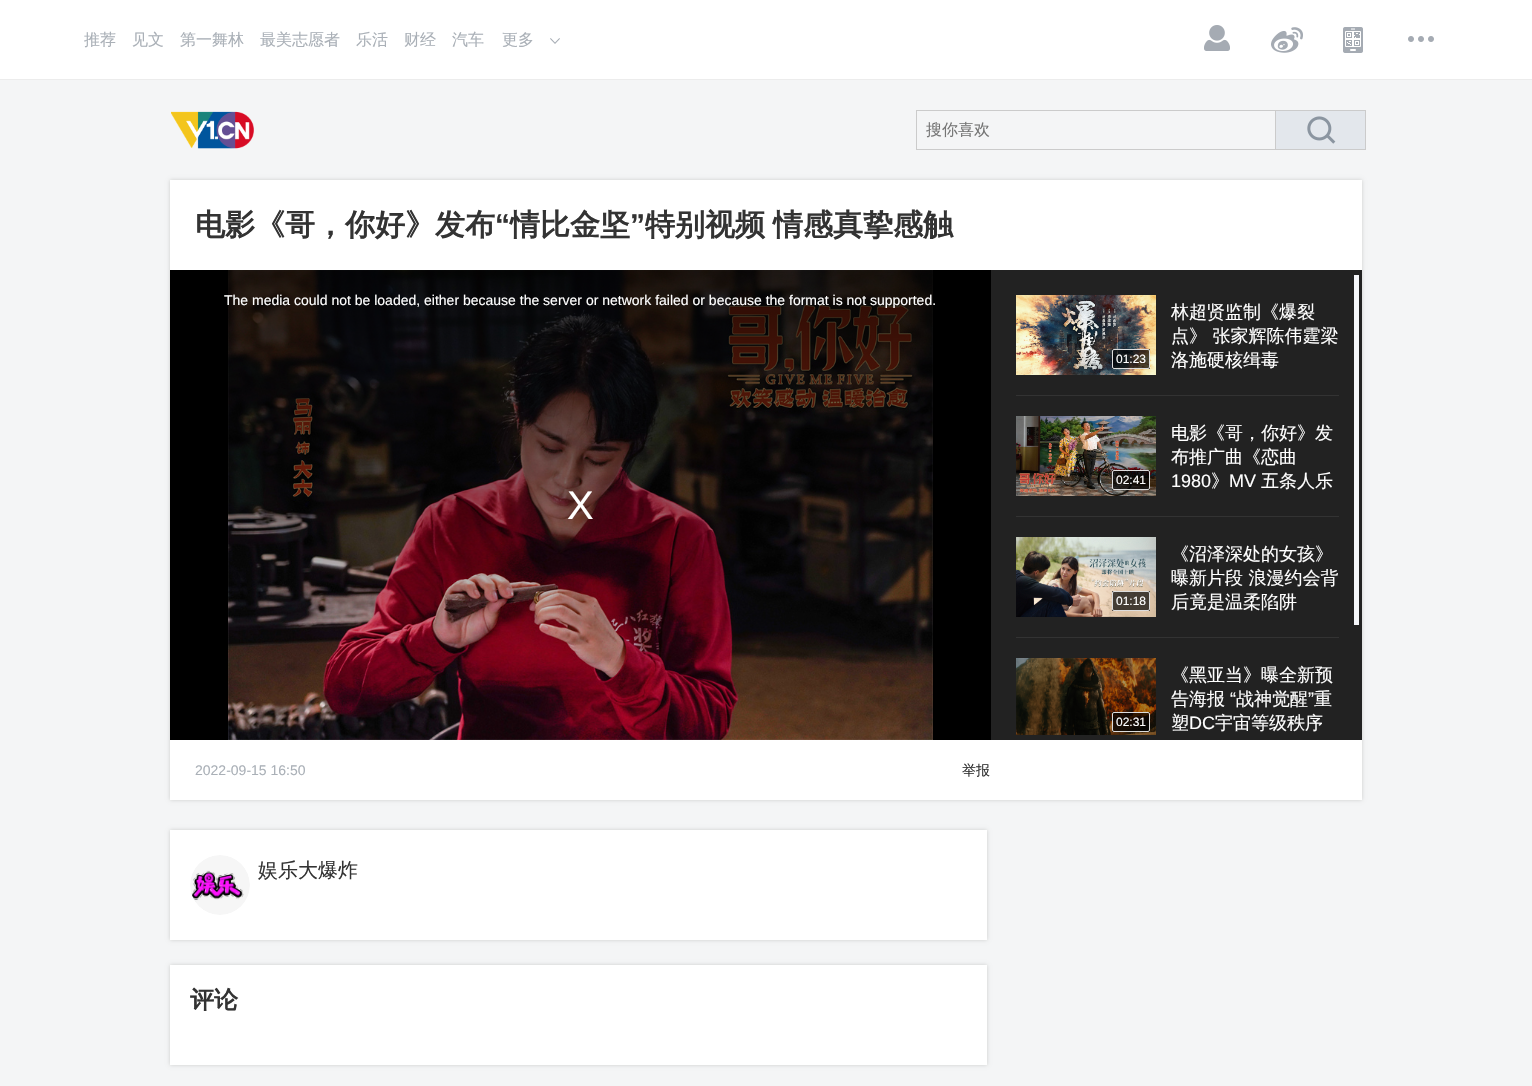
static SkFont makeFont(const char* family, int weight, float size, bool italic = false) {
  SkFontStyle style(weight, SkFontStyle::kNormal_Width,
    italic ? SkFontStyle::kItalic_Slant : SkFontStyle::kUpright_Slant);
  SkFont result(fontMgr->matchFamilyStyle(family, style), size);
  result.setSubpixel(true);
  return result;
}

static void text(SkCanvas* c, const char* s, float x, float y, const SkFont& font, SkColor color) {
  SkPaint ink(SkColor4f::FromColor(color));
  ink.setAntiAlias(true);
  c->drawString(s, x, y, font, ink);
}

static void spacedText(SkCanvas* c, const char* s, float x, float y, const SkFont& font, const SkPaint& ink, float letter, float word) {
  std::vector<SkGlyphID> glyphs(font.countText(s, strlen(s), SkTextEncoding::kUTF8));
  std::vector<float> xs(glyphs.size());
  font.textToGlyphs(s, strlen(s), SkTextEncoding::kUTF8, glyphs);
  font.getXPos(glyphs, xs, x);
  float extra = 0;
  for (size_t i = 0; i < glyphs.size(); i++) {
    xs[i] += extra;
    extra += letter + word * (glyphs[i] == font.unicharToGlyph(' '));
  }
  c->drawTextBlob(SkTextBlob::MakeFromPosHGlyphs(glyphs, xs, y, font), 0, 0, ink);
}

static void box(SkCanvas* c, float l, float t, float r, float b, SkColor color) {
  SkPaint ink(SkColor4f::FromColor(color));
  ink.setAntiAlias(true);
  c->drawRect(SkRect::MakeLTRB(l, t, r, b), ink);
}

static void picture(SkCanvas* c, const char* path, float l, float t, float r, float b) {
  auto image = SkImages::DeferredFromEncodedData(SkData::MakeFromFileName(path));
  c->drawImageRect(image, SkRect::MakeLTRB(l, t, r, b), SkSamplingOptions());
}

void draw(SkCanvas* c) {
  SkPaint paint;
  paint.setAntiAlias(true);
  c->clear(0xfff4f5f6);
  box(c, 0, 0, 1532, 79, 0xffffffff);
  box(c, 0, 79, 1532, 80, 0xffececec);
  SkFont face1 = makeFont("WenQuanYi Zen Hei", 500, 16);
  text(c, "推荐", 84, 45, face1, 0xffaab0b7);
  text(c, "见文", 132, 45, face1, 0xffaab0b7);
  text(c, "第一舞林", 180, 45, face1, 0xffaab0b7);
  text(c, "最美志愿者", 260, 45, face1, 0xffaab0b7);
  text(c, "乐活", 356, 45, face1, 0xffaab0b7);
  text(c, "财经", 404, 45, face1, 0xffaab0b7);
  text(c, "汽车", 452, 45, face1, 0xffaab0b7);
  picture(c, "img_01.png", 550, 38, 560, 44);
  text(c, "更多", 502, 45, face1, 0xffaab0b7);
  picture(c, "img_02.png", 1204, 25, 1230, 51);
  picture(c, "img_03.png", 1271, 27, 1303, 53);
  picture(c, "img_04.png", 1343, 27, 1363, 53);
  picture(c, "img_05.png", 1408, 36, 1434, 42);
  picture(c, "img_06.png", 171, 111, 254, 149);
  paint.setStyle(SkPaint::kStroke_Style);
  paint.setStrokeWidth(1);
  paint.setColor(0xffcbcbcb);
  c->drawRect(SkRect::MakeLTRB(916.5f, 110.5f, 1275.5f, 149.5f), paint);
  text(c, "搜你喜欢", 926, 135, face1, 0xff757575);
  box(c, 1276, 111, 1365, 149, 0xffe3e7ec);
  picture(c, "img_07.png", 1307, 116, 1336, 144);
  box(c, 1276, 110, 1366, 111, 0xffcbcbcb);
  box(c, 1365, 110, 1366, 150, 0xffcbcbcb);
  box(c, 1276, 149, 1366, 150, 0xffcbcbcb);
  paint.setStyle(SkPaint::kFill_Style);
  paint.setColor(0xffcccccc);
  paint.setMaskFilter(SkMaskFilter::MakeBlur(kNormal_SkBlurStyle, 2));
  c->drawRect(SkRect::MakeLTRB(170, 180, 1362, 800), paint);
  paint.setMaskFilter(nullptr);
  box(c, 170, 180, 1362, 800, 0xffffffff);
  SkFont face2 = makeFont("WenQuanYi Zen Hei", 700, 30);
  text(c, "电影《哥，你好》发布", 195, 235, face2, 0xff333333);
  SkFont face3 = makeFont("Liberation Sans", 700, 30);
  text(c, "“", 495, 235, face3, 0xff333333);
  text(c, "情比金坚", 510, 235, face2, 0xff333333);
  text(c, "”", 630, 235, face3, 0xff333333);
  paint.setColor(0xff333333);
  spacedText(c, "特别视频 情感真挚感触", 645, 235, face2, paint, 0, -1);
  box(c, 170, 270, 991, 740, 0xff000000);
  picture(c, "img_08.png", 228, 270, 933, 740);
  {
    const SkColor colors[] = {0xcc000000, 0x00000000};
    const float stops[] = {0, 1};
    const SkPoint ends[] = {{580, 270}, {580, 740}};
    paint.setShader(SkGradientShader::MakeLinear(ends, colors, stops, 2, SkTileMode::kClamp));
    paint.setAlpha(255);
  }
  c->drawRect(SkRect::MakeLTRB(228, 270, 933, 727), paint);
  SkFont face4 = makeFont("Liberation Sans", 400, 14);
  text(c, "The media could not be loaded, either because the server or network failed or because the format is not supported.", 224, 305, face4, 0xffffffff);
  SkFont face5 = makeFont("Liberation Sans", 400, 40);
  text(c, "X", 567, 519, face5, 0xffffffff);
  box(c, 991, 270, 1362, 740, 0xff222222);
  box(c, 1016, 395, 1339, 396, 0xff333333);
  picture(c, "img_09.png", 1016, 295, 1156, 375);
  box(c, 1112, 349, 1150, 369, 0xb3000000);
  paint.setStyle(SkPaint::kStroke_Style);
  paint.setShader(nullptr);
  paint.setColor(0xffdddddd);
  c->drawRoundRect(SkRect::MakeLTRB(1112.5f, 349.5f, 1149.5f, 368.5f), 1.5f, 1.5f, paint);
  SkFont face6 = makeFont("Liberation Sans", 400, 12);
  text(c, "01:23", 1116, 363, face6, 0xffffffff);
  SkFont face7 = makeFont("WenQuanYi Zen Hei", 500, 18);
  text(c, "林超贤监制《爆裂", 1171, 318, face7, 0xffffffff);
  text(c, "点》 张家辉陈伟霆梁", 1171, 342, face7, 0xffffffff);
  text(c, "洛施硬核缉毒", 1171, 366, face7, 0xffffffff);
  box(c, 1016, 516, 1339, 517, 0xff333333);
  picture(c, "img_10.png", 1016, 416, 1156, 496);
  box(c, 1112, 470, 1150, 490, 0xb3000000);
  c->drawRoundRect(SkRect::MakeLTRB(1112.5f, 470.5f, 1149.5f, 489.5f), 1.5f, 1.5f, paint);
  text(c, "02:41", 1116, 484, face6, 0xffffffff);
  text(c, "电影《哥，你好》发", 1171, 439, face7, 0xffffffff);
  text(c, "布推广曲《恋曲", 1171, 463, face7, 0xffffffff);
  SkFont face8 = makeFont("Liberation Sans", 400, 18);
  text(c, "1980", 1171, 487, face8, 0xffffffff);
  text(c, "》", 1211, 487, face7, 0xffffffff);
  text(c, "MV", 1229, 487, face8, 0xffffffff);
  text(c, "五条人乐", 1261, 487, face7, 0xffffffff);
  box(c, 1016, 637, 1339, 638, 0xff333333);
  picture(c, "img_11.png", 1016, 537, 1156, 617);
  box(c, 1112, 591, 1150, 611, 0xb3000000);
  c->drawRoundRect(SkRect::MakeLTRB(1112.5f, 591.5f, 1149.5f, 610.5f), 1.5f, 1.5f, paint);
  text(c, "01:18", 1116, 605, face6, 0xffffffff);
  text(c, "《沼泽深处的女孩》", 1171, 560, face7, 0xffffffff);
  text(c, "曝新片段 浪漫约会背", 1171, 584, face7, 0xffffffff);
  text(c, "后竟是温柔陷阱", 1171, 608, face7, 0xffffffff);
  picture(c, "img_12.png", 1016, 658, 1156, 735);
  box(c, 1112, 712, 1150, 732, 0xb3000000);
  c->drawRoundRect(SkRect::MakeLTRB(1112.5f, 712.5f, 1149.5f, 731.5f), 1.5f, 1.5f, paint);
  text(c, "02:31", 1116, 726, face6, 0xffffffff);
  text(c, "《黑亚当》曝全新预", 1171, 681, face7, 0xffffffff);
  text(c, "告海报", 1171, 705, face7, 0xffffffff);
  text(c, "“", 1230, 705, face8, 0xffffffff);
  text(c, "战神觉醒", 1236, 705, face7, 0xffffffff);
  text(c, "”", 1308, 705, face8, 0xffffffff);
  text(c, "重", 1314, 705, face7, 0xffffffff);
  text(c, "塑", 1171, 729, face7, 0xffffffff);
  text(c, "DC", 1189, 729, face8, 0xffffffff);
  text(c, "宇宙等级秩序", 1215, 729, face7, 0xffffffff);
  text(c, "2022-09-15 16:50", 195, 775, face4, 0xffaab0b7);
  SkFont face9 = makeFont("WenQuanYi Zen Hei", 500, 14);
  text(c, "举报", 962, 775, face9, 0xff333333);
  paint.setStyle(SkPaint::kFill_Style);
  paint.setColor(0xffcccccc);
  paint.setMaskFilter(SkMaskFilter::MakeBlur(kNormal_SkBlurStyle, 2));
  c->drawRect(SkRect::MakeLTRB(170, 830, 987, 940), paint);
  paint.setMaskFilter(nullptr);
  box(c, 170, 830, 987, 940, 0xffffffff);
  picture(c, "img_13.png", 190, 855, 250, 915);
  SkFont face10 = makeFont("WenQuanYi Zen Hei", 500, 20);
  text(c, "娱乐大爆炸", 258, 877, face10, 0xff333333);
  paint.setMaskFilter(SkMaskFilter::MakeBlur(kNormal_SkBlurStyle, 2));
  c->drawRect(SkRect::MakeLTRB(170, 965, 987, 1065), paint);
  paint.setMaskFilter(nullptr);
  box(c, 170, 965, 987, 1065, 0xffffffff);
  SkFont face11 = makeFont("WenQuanYi Zen Hei", 700, 24);
  text(c, "评论", 190, 1008, face11, 0xff333333);
  box(c, 1354, 275, 1359, 625, 0xfff5f7fa);
}
